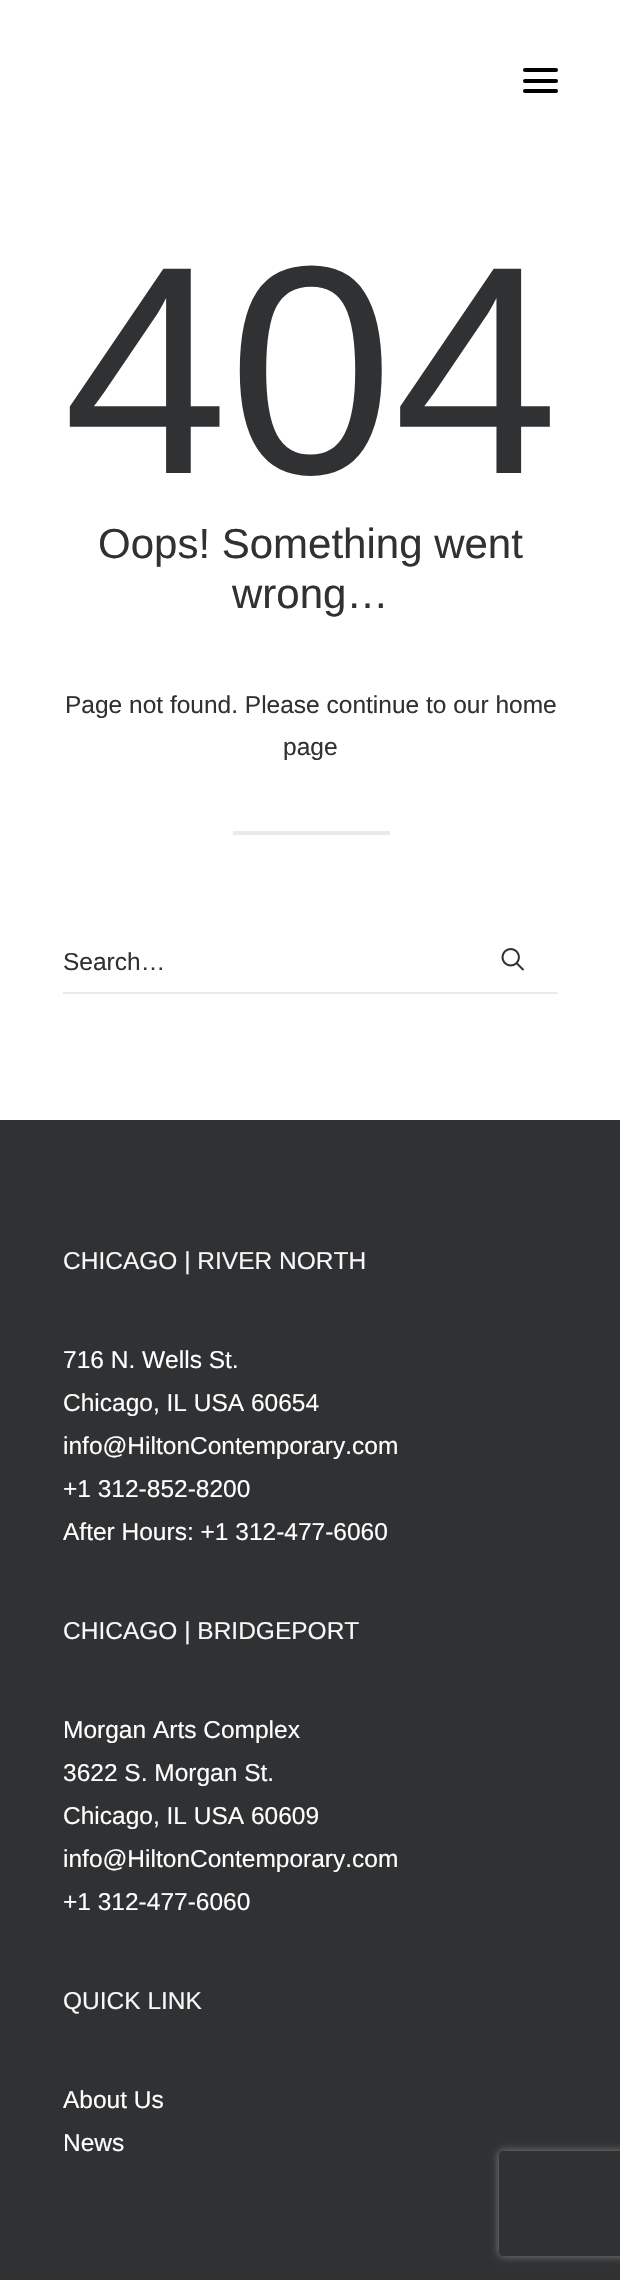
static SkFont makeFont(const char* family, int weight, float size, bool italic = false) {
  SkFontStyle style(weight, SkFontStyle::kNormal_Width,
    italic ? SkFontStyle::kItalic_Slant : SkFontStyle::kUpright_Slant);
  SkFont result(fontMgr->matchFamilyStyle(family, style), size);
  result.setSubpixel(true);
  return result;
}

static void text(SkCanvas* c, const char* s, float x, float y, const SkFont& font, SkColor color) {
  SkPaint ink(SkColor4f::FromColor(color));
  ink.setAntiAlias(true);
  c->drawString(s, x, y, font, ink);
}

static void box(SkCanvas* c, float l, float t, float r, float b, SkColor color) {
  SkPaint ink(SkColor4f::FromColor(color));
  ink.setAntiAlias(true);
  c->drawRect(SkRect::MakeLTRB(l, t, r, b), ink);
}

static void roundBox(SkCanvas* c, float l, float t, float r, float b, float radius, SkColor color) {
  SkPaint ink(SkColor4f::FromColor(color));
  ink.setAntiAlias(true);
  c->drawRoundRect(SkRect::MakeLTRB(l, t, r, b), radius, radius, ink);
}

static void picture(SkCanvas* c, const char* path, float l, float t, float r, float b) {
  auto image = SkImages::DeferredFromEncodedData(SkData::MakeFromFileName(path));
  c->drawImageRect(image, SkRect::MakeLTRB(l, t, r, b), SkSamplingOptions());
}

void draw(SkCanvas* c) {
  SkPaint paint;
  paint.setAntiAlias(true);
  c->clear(0xffffffff);
  roundBox(c, 523, 79, 558, 83, 2, 0xff000000);
  roundBox(c, 523, 68, 558, 72, 2, 0xff000000);
  roundBox(c, 523, 89, 558, 93, 2, 0xff000000);
  SkFont face1 = makeFont("Liberation Sans", 400, 297);
  text(c, "404", 63, 473, face1, 0xff303133);
  SkFont face2 = makeFont("Liberation Sans", 400, 42);
  text(c, "Oops! Something went", 98, 558, face2, 0xff303133);
  text(c, "wrong…", 232, 608, face2, 0xff303133);
  SkFont face3 = makeFont("Liberation Sans", 400, 24.5f);
  text(c, "Page not found. Please continue to our home", 65, 713, face3, 0xff303133);
  text(c, "page", 283, 755, face3, 0xff303133);
  box(c, 233, 831, 390, 835, 0xffeaeaea);
  box(c, 63, 992, 558, 994, 0xffeaeaea);
  text(c, "Search…", 63, 970, face3, 0xff303133);
  picture(c, "img_01.png", 501, 948, 524, 971);
  box(c, 0, 1120, 620, 2280, 0xff303133);
  text(c, "CHICAGO | RIVER NORTH", 63, 1269, face3, 0xfff7f7f7);
  text(c, "716 N. Wells St.", 63, 1368, face3, 0xffffffff);
  text(c, "Chicago, IL USA 60654", 63, 1411, face3, 0xffffffff);
  text(c, "info@HiltonContemporary.com", 63, 1454, face3, 0xffffffff);
  text(c, "+1 312-852-8200", 63, 1497, face3, 0xffffffff);
  text(c, "After Hours: +1 312-477-6060", 63, 1540, face3, 0xffffffff);
  text(c, "CHICAGO | BRIDGEPORT", 63, 1639, face3, 0xfff7f7f7);
  text(c, "Morgan Arts Complex", 63, 1738, face3, 0xffffffff);
  text(c, "3622 S. Morgan St.", 63, 1781, face3, 0xffffffff);
  text(c, "Chicago, IL USA 60609", 63, 1824, face3, 0xffffffff);
  text(c, "info@HiltonContemporary.com", 63, 1867, face3, 0xffffffff);
  text(c, "+1 312-477-6060", 63, 1910, face3, 0xffffffff);
  text(c, "QUICK LINK", 63, 2009, face3, 0xfff7f7f7);
  text(c, "About Us", 63, 2108, face3, 0xffffffff);
  text(c, "News", 63, 2151, face3, 0xffffffff);
  c->save();
  c->clipPath(SkPathBuilder(SkPathFillType::kEvenOdd).moveTo(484, 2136).lineTo(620, 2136).lineTo(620, 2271).lineTo(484, 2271).close().moveTo(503, 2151).lineTo(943, 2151).cubicTo(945, 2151, 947, 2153, 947, 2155).lineTo(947, 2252).cubicTo(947, 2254, 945, 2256, 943, 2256).lineTo(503, 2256).cubicTo(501, 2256, 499, 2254, 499, 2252).lineTo(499, 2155).cubicTo(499, 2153, 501, 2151, 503, 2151).close().detach(), true);
  paint.setColor(0xff808080);
  paint.setMaskFilter(SkMaskFilter::MakeBlur(kNormal_SkBlurStyle, 4.5f));
  c->drawRoundRect(SkRect::MakeLTRB(499, 2151, 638, 2256), 4, 4, paint);
  paint.setMaskFilter(nullptr);
  c->restore();
}
